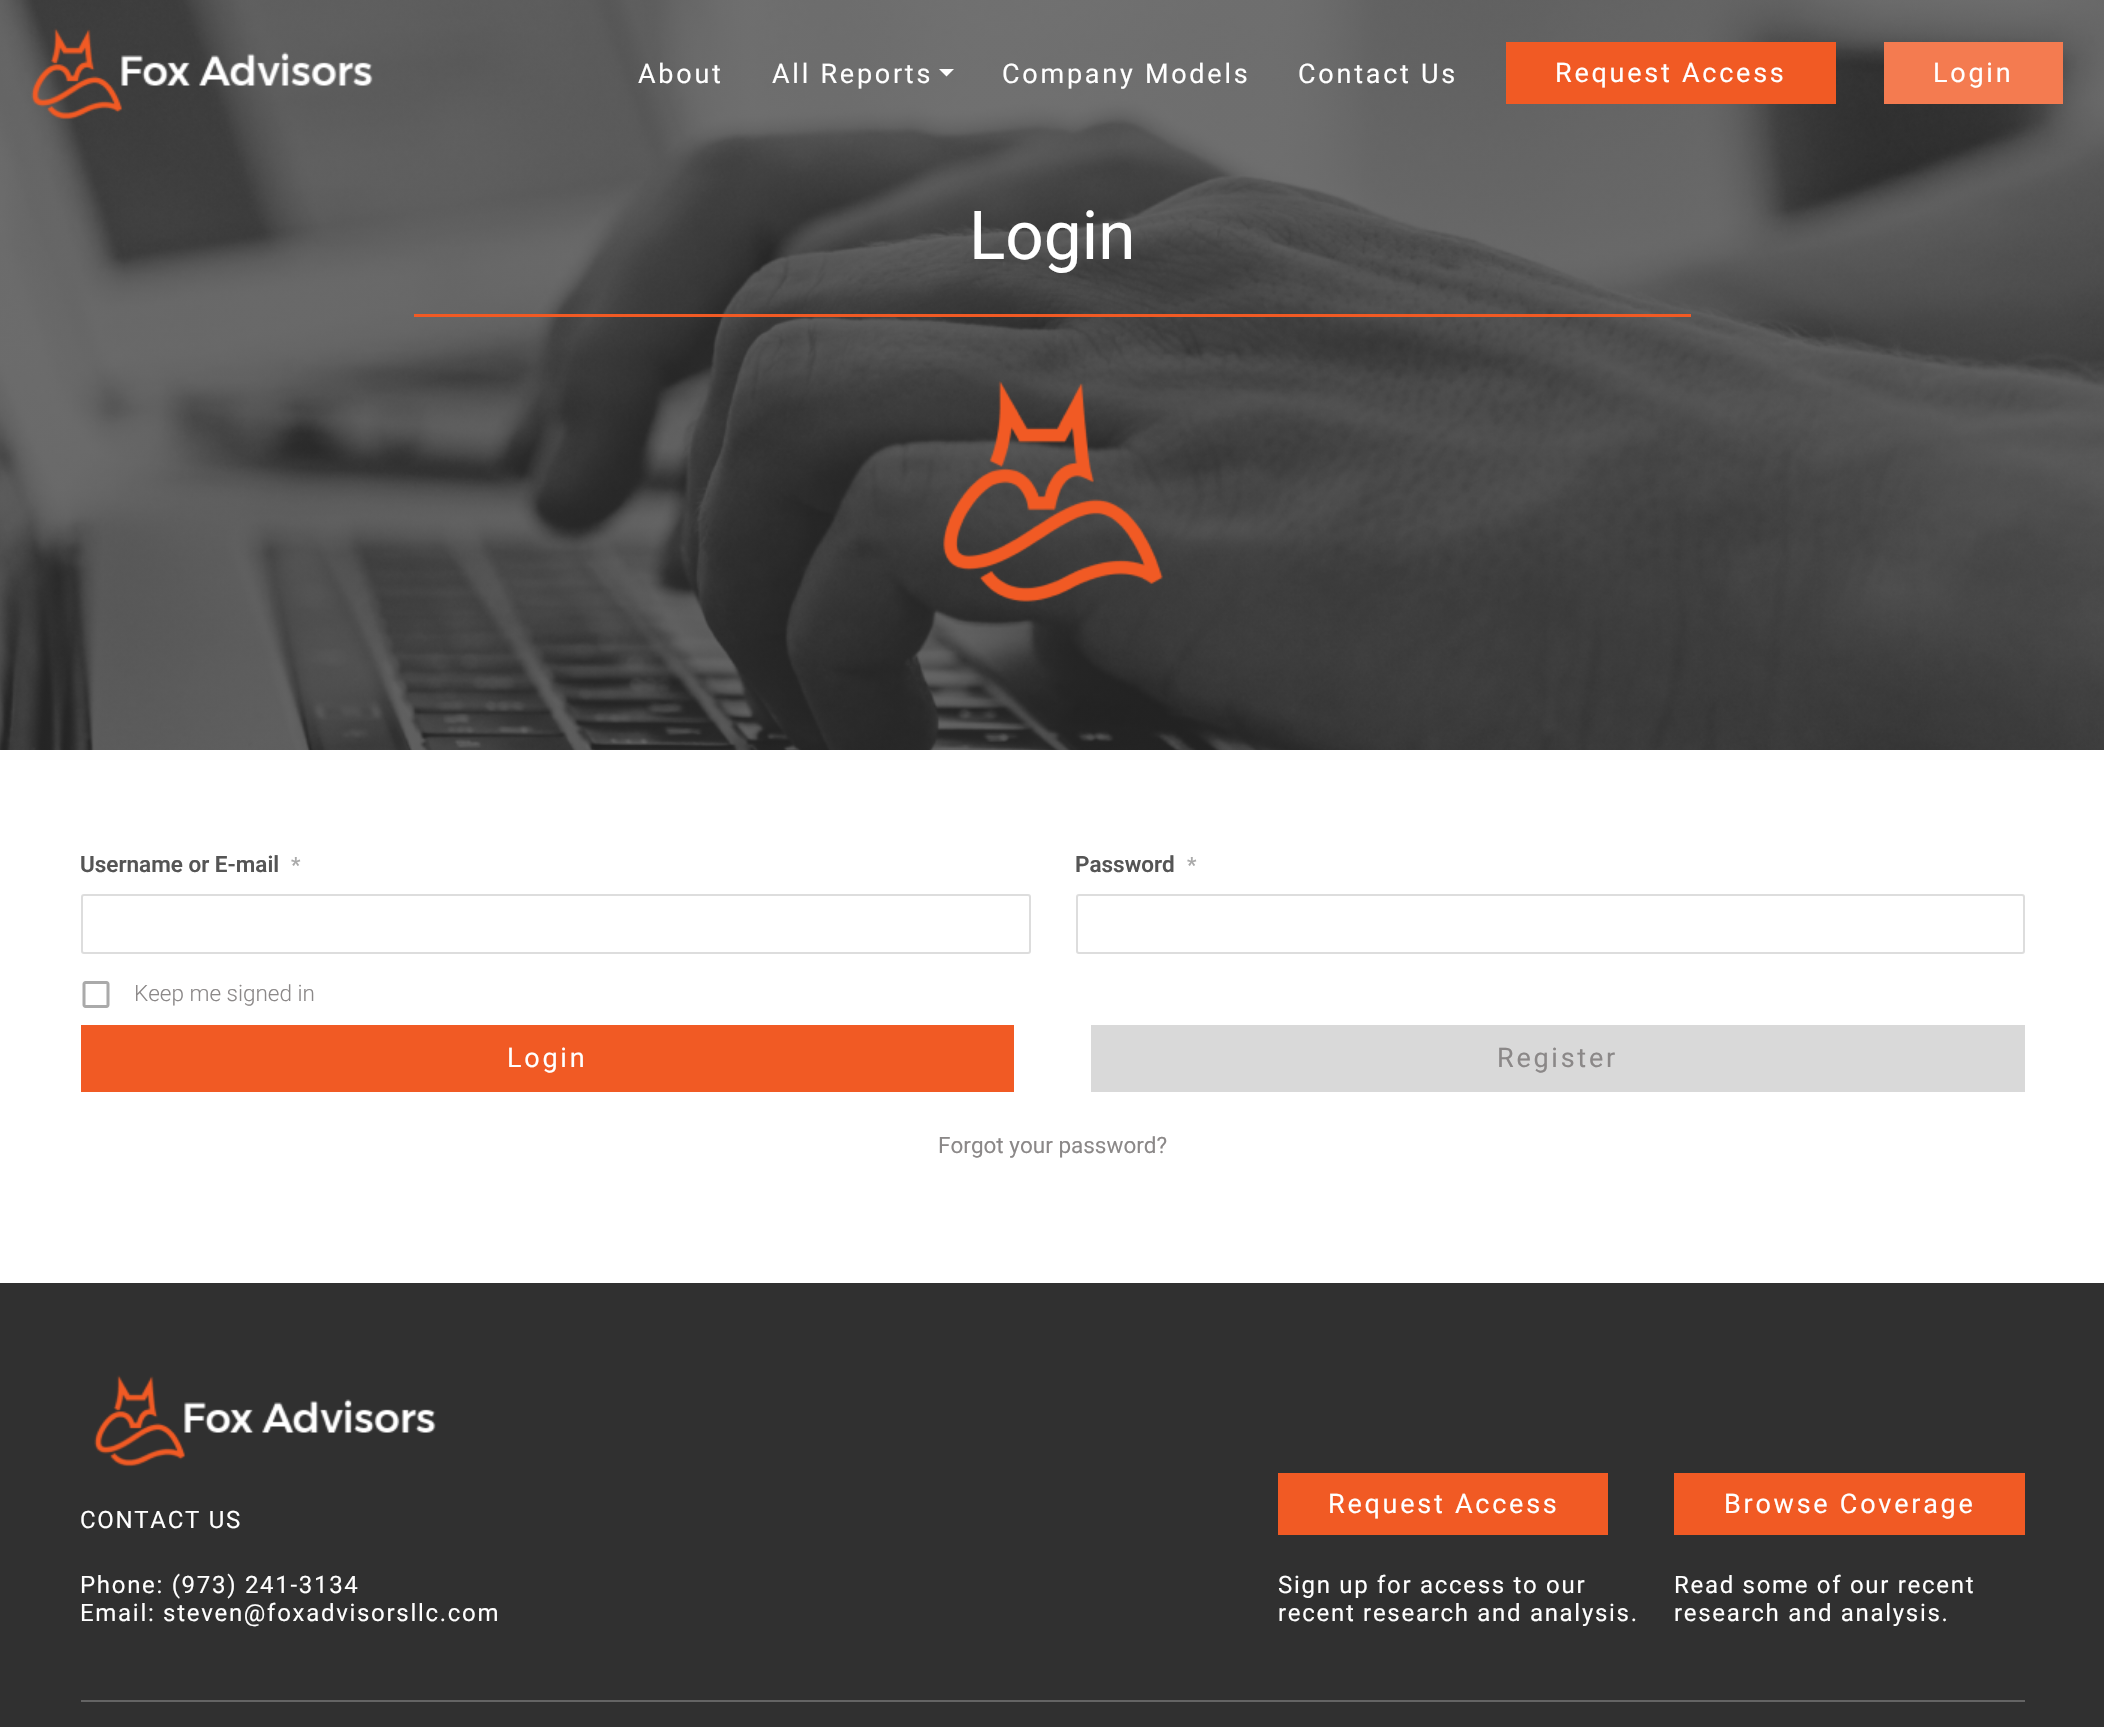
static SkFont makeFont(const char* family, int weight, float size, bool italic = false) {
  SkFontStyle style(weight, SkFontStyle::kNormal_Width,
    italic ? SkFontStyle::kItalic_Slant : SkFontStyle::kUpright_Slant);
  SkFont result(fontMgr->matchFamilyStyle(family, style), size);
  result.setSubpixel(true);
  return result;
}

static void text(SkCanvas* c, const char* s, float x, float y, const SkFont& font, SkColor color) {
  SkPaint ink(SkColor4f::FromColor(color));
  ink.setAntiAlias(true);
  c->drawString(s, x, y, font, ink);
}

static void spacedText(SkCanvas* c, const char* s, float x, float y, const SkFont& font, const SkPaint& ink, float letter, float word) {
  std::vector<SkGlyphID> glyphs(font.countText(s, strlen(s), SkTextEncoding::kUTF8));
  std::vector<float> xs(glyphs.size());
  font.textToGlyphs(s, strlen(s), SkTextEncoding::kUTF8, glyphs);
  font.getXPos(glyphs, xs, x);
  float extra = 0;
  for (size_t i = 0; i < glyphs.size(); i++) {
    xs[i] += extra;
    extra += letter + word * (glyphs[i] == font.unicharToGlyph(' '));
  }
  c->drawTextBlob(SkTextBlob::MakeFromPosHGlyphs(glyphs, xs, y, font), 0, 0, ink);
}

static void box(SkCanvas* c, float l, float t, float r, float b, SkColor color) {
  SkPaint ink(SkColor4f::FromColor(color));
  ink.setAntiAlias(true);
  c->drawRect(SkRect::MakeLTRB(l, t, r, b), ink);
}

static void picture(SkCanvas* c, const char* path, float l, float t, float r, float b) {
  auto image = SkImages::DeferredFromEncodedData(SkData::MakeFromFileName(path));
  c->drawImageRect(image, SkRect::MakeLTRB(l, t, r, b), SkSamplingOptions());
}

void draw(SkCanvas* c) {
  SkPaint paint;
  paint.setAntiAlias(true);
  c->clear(0xffffffff);
  picture(c, "img_02.png", 0, 0, 2104, 750);
  picture(c, "img_01.png", 31, 28, 373, 120);
  SkFont face1 = makeFont("Roboto", 400, 27);
  paint.setColor(0xffffffff);
  spacedText(c, "About", 638, 83, face1, paint, 2.75f, 0);
  spacedText(c, "All Reports", 772, 83, face1, paint, 2.75f, 0);
  c->drawPath(SkPathBuilder().moveTo(939, 69).lineTo(954, 69).lineTo(946.5f, 76.5f).close().detach(), paint);
  spacedText(c, "Company Models", 1002, 83, face1, paint, 2.75f, 0);
  spacedText(c, "Contact Us", 1298, 83, face1, paint, 2.75f, 0);
  box(c, 1506, 42, 1836, 104, 0xfff15a24);
  spacedText(c, "Request Access", 1555, 82, face1, paint, 2.75f, 0);
  box(c, 1884, 42, 2063, 104, 0xfff47b50);
  spacedText(c, "Login", 1933, 82, face1, paint, 2.75f, 0);
  SkFont face2 = makeFont("Roboto", 400, 67.5f);
  text(c, "Login", 969, 259, face2, 0xffffffff);
  box(c, 414, 314, 1691, 317, 0xfff15a24);
  picture(c, "img_03.png", 943, 381, 1163, 602);
  SkFont face3 = makeFont("Roboto", 600, 22.5f);
  text(c, "Username or E-mail", 80, 872, face3, 0xff555555);
  SkFont face4 = makeFont("Roboto", 600, 21);
  text(c, "*", 291, 872, face4, 0xffaaaaaa);
  paint.setStyle(SkPaint::kStroke_Style);
  paint.setStrokeWidth(2);
  paint.setColor(0xffdddddd);
  c->drawRoundRect(SkRect::MakeLTRB(82, 895, 1030, 953), 2, 2, paint);
  text(c, "Password", 1075, 872, face3, 0xff555555);
  text(c, "*", 1187, 872, face4, 0xffaaaaaa);
  c->drawRoundRect(SkRect::MakeLTRB(1077, 895, 2024, 953), 2, 2, paint);
  picture(c, "img_04.png", 82, 981, 110, 1008);
  SkFont face5 = makeFont("Roboto", 300, 22.5f);
  text(c, "Keep me signed in", 134, 1001, face5, 0xff8b8888);
  box(c, 81, 1025, 1014, 1092, 0xfff15a24);
  paint.setStyle(SkPaint::kFill_Style);
  paint.setColor(0xffffffff);
  spacedText(c, "Login", 507, 1067, face1, paint, 2.75f, 0);
  box(c, 1091, 1025, 2025, 1092, 0xffd9d9d9);
  paint.setColor(0xff8b8888);
  spacedText(c, "Register", 1497, 1067, face1, paint, 2.75f, 0);
  SkFont face6 = makeFont("Roboto", 400, 22.5f);
  text(c, "Forgot your password?", 938, 1153, face6, 0xff8b8888);
  box(c, 0, 1283, 2104, 1727, 0xff303030);
  picture(c, "img_05.png", 94, 1375, 436, 1467);
  SkFont face7 = makeFont("Roboto", 400, 24);
  paint.setColor(0xffffffff);
  spacedText(c, "CONTACT US", 80, 1528, face7, paint, 1.7f, 0);
  spacedText(c, "Phone: (973) 241-3134", 80, 1593, face7, paint, 1.7f, 0);
  spacedText(c, "Email: steven@foxadvisorsllc.com", 80, 1621, face7, paint, 1.7f, 0);
  box(c, 1278, 1473, 1608, 1535, 0xfff15a24);
  spacedText(c, "Request Access", 1328, 1513, face1, paint, 2.75f, 0);
  spacedText(c, "Sign up for access to our", 1278, 1593, face7, paint, 1.7f, 0);
  spacedText(c, "recent research and analysis.", 1278, 1621, face7, paint, 1.7f, 0);
  box(c, 1674, 1473, 2025, 1535, 0xfff15a24);
  spacedText(c, "Browse Coverage", 1724, 1513, face1, paint, 2.75f, 0);
  spacedText(c, "Read some of our recent", 1674, 1593, face7, paint, 1.7f, 0);
  spacedText(c, "research and analysis.", 1674, 1621, face7, paint, 1.7f, 0);
  box(c, 81, 1700, 2025, 1702, 0xff646464);
}
